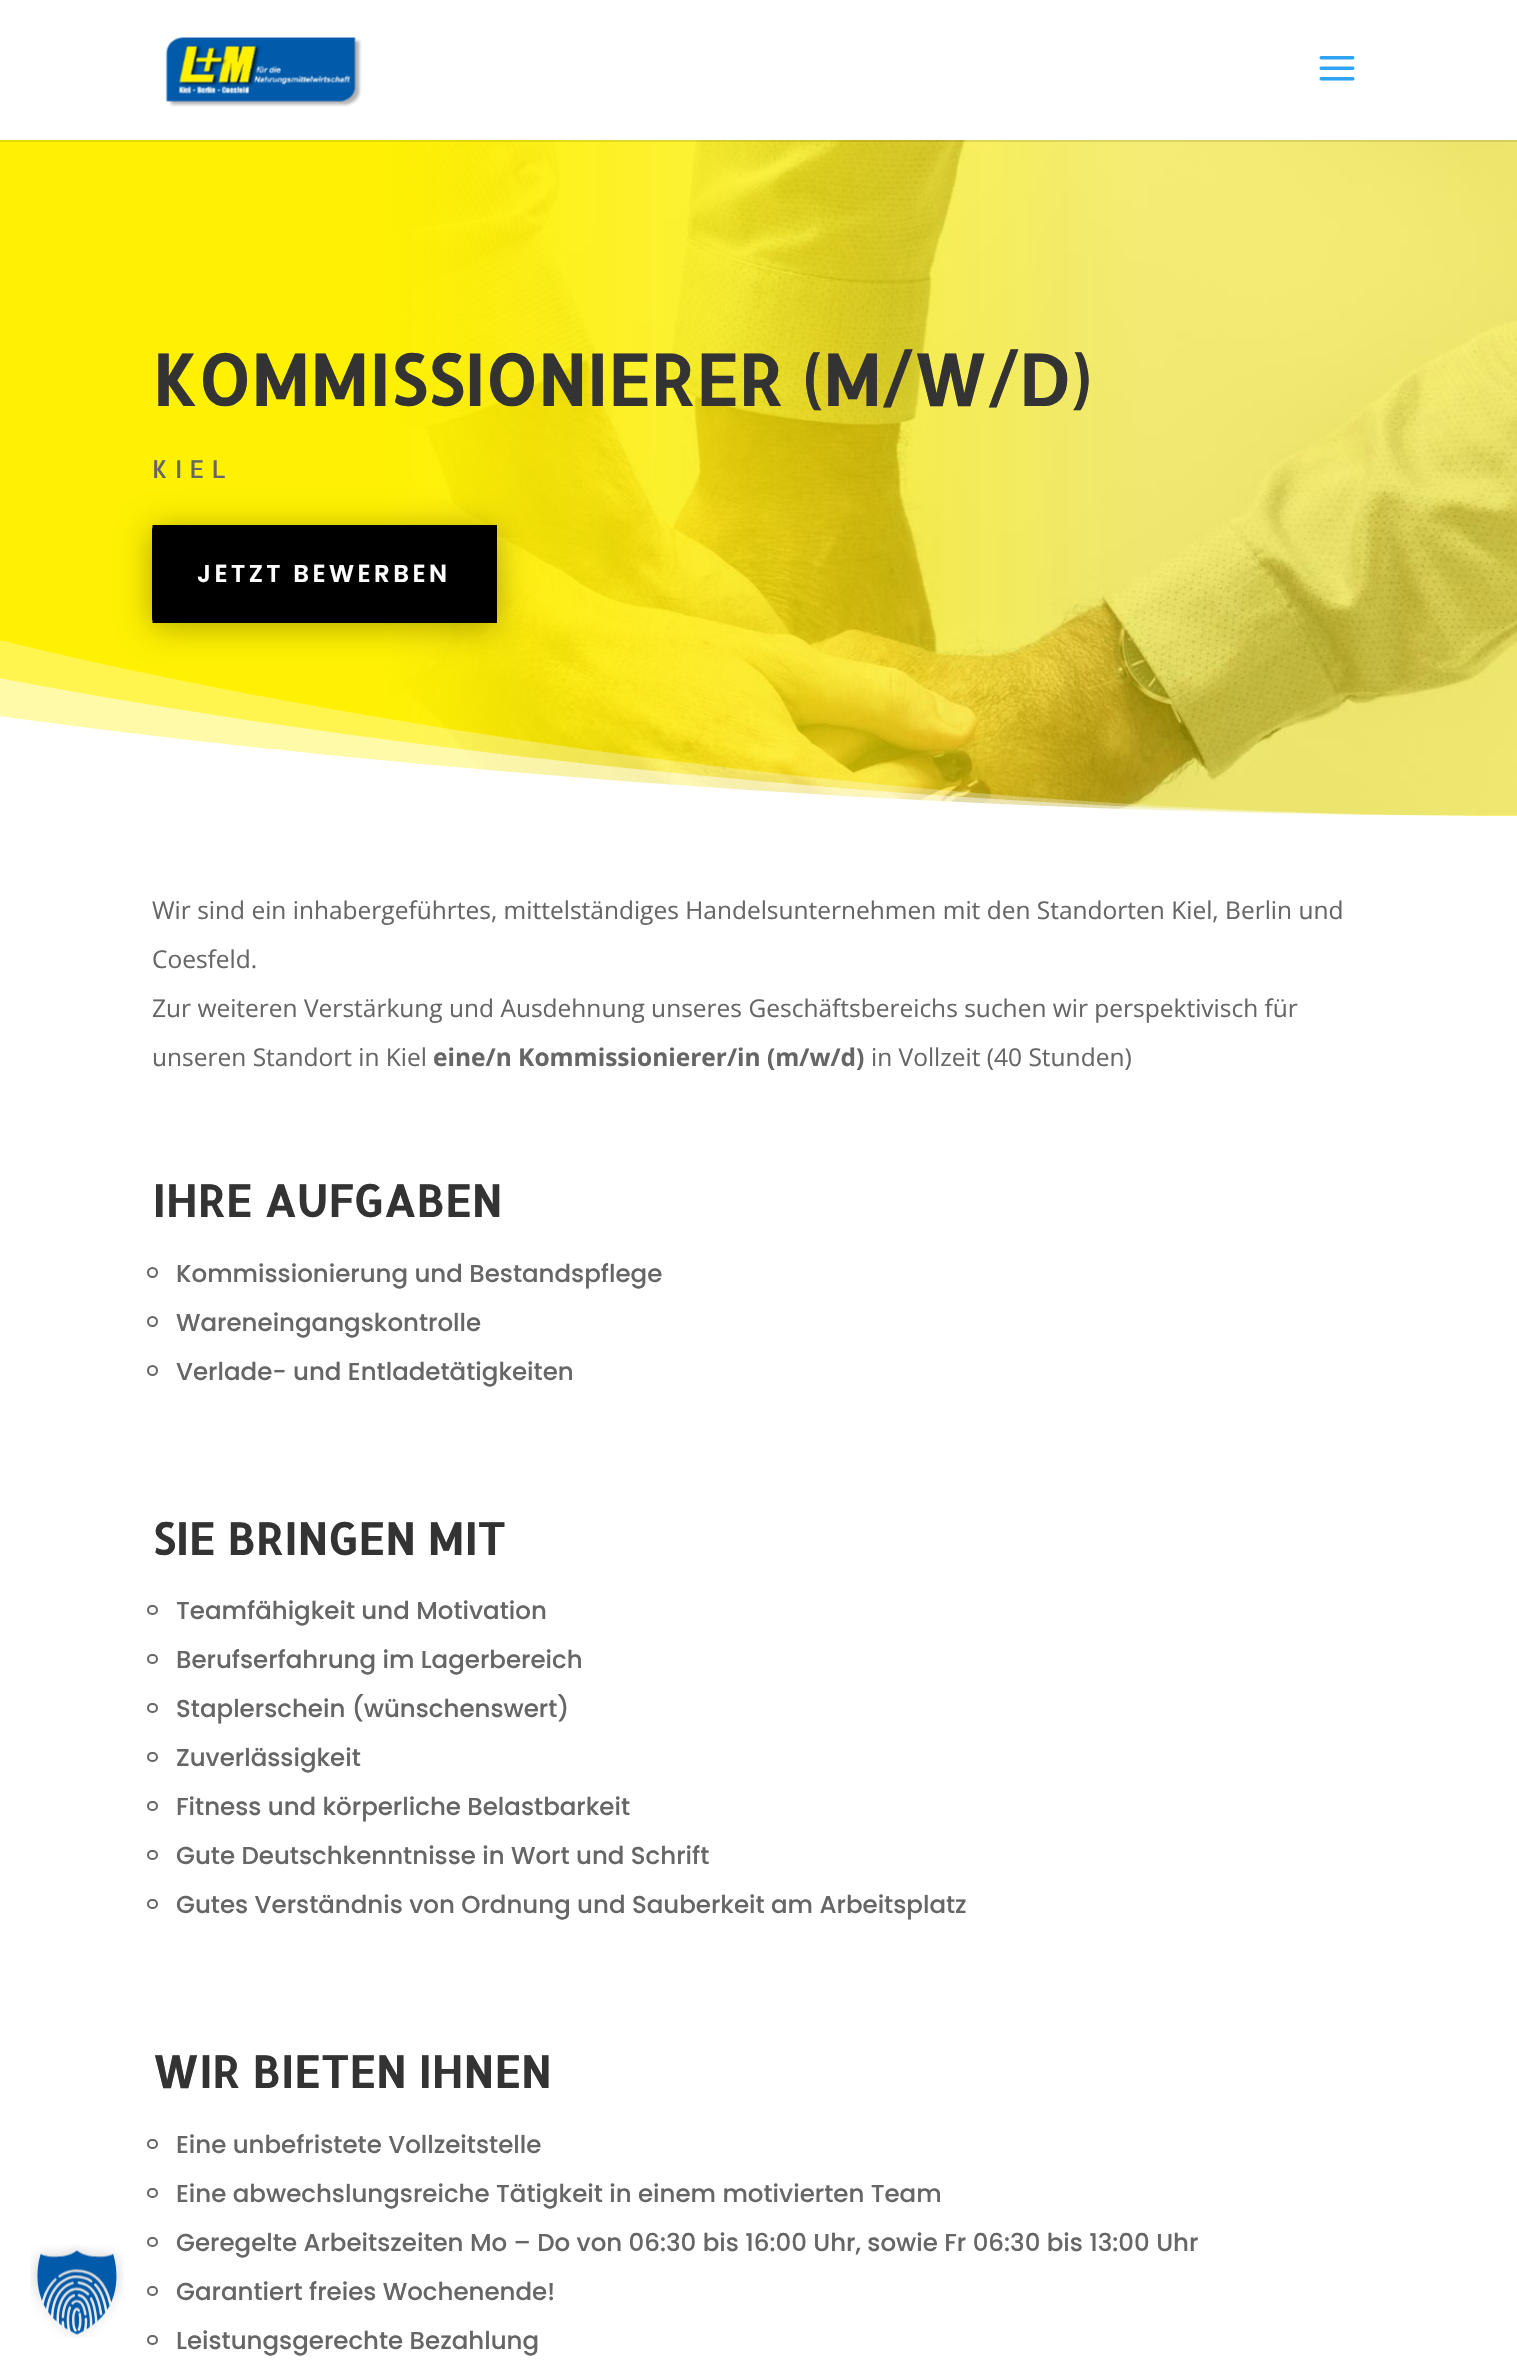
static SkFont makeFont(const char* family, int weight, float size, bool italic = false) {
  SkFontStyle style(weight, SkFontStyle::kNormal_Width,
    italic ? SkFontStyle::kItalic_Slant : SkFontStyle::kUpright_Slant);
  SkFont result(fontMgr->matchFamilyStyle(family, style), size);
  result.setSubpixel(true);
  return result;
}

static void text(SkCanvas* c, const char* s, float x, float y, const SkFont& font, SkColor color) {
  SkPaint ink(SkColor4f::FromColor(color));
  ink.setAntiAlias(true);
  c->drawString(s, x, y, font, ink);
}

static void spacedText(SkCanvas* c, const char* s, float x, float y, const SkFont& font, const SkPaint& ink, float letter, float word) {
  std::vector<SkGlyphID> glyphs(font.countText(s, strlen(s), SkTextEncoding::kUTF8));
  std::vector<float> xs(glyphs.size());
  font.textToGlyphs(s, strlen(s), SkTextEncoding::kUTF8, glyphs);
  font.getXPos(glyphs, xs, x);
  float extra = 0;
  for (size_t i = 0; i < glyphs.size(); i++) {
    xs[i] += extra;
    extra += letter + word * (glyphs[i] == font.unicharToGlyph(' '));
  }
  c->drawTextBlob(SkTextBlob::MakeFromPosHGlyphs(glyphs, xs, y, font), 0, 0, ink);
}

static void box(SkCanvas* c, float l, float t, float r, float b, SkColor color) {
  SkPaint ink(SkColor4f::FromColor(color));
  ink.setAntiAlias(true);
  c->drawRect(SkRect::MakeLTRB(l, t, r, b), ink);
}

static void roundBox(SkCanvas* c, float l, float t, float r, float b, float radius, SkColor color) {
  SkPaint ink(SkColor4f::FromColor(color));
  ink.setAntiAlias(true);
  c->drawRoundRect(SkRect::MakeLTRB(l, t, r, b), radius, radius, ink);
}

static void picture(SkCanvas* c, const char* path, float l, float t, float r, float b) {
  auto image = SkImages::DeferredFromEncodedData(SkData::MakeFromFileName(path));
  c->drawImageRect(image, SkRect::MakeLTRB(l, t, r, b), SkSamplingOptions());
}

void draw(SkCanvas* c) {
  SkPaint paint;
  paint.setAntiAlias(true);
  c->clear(0xffffffff);
  picture(c, "img_01.png", 30, 2245, 124, 2338);
  picture(c, "img_04.png", 388, 140, 1517, 816);
  {
    const SkColor colors[] = {0xfffff101, 0x80fff101};
    const float stops[] = {0.25f, 0.75f};
    const SkPoint ends[] = {{0, 477}, {1517, 477}};
    paint.setShader(SkGradientShader::MakeLinear(ends, colors, stops, 2, SkTileMode::kClamp));
    paint.setAlpha(255);
  }
  c->drawRect(SkRect::MakeLTRB(0, 140, 1517, 816), paint);
  box(c, 0, 140, 1517, 142, 0x1a000000);
  picture(c, "img_02.png", 165, 37, 362, 107);
  picture(c, "img_03.png", 1319, 56, 1355, 81);
  SkFont face1 = makeFont("Allerta", 700, 70);
  text(c, "KOMMISSIONIERER (M/W/D)", 152, 406, face1, 0xff333333);
  SkFont face2 = makeFont("Allerta", 400, 24.5f);
  paint.setShader(nullptr);
  paint.setColor(0xff666666);
  spacedText(c, "KIEL", 152, 478, face2, paint, 7, 0);
  paint.setColor(0x4d000000);
  paint.setMaskFilter(SkMaskFilter::MakeBlur(kNormal_SkBlurStyle, 16));
  c->drawRoundRect(SkRect::MakeLTRB(152, 529, 497, 627), 5, 5, paint);
  paint.setMaskFilter(nullptr);
  roundBox(c, 152, 525, 497, 623, 5, 0xff000000);
  paint.setStyle(SkPaint::kStroke_Style);
  paint.setStrokeWidth(21);
  paint.setColor(0xff000000);
  c->drawPath(SkPathBuilder().moveTo(163, 535.5f).lineTo(486.5f, 535.5f).lineTo(486.5f, 612.5f).lineTo(163, 612.5f).close().detach(), paint);
  SkFont face3 = makeFont("Poppins", 600, 24.5f);
  paint.setStyle(SkPaint::kFill_Style);
  paint.setColor(0xffffffff);
  spacedText(c, "JETZT BEWERBEN", 197, 582, face3, paint, 3.5f, 0);
  c->save();
  c->clipRect(SkRect::MakeLTRB(0, 641, 1517, 816));
  paint.setColor(0x4dffffff);
  c->drawPath(SkPathBuilder().moveTo(0, 816).lineTo(1517, 816).cubicTo(679, 816, 0, 640, 0, 640).close().detach(), paint);
  c->restore();
  paint.setColor(0x80ffffff);
  c->drawPath(SkPathBuilder().moveTo(0, 816).lineTo(1517, 816).cubicTo(679, 816, 0, 678, 0, 678).close().detach(), paint);
  paint.setColor(0xffffffff);
  c->drawPath(SkPathBuilder().moveTo(0, 816).lineTo(1517, 816).cubicTo(679, 816, 0, 716, 0, 716).close().detach(), paint);
  SkFont face4 = makeFont("Open Sans", 400, 24.5f);
  text(c, "Wir sind ein inhabergeführtes, mittelständiges Handelsunternehmen mit den Standorten Kiel, Berlin und", 152, 919, face4, 0xff666666);
  text(c, "Coesfeld.", 152, 968, face4, 0xff666666);
  text(c, "Zur weiteren Verstärkung und Ausdehnung unseres Geschäftsbereichs suchen wir perspektivisch für", 152, 1017, face4, 0xff666666);
  text(c, "unseren Standort in Kiel", 152, 1066, face4, 0xff666666);
  SkFont face5 = makeFont("Open Sans", 700, 24.5f);
  text(c, "eine/n Kommissionierer/in (m/w/d)", 433, 1066, face5, 0xff666666);
  text(c, "in Vollzeit (40 Stunden)", 871, 1066, face4, 0xff666666);
  SkFont face6 = makeFont("Allerta", 700, 43.75f);
  text(c, "IHRE AUFGABEN", 152, 1217, face6, 0xff333333);
  paint.setStyle(SkPaint::kStroke_Style);
  paint.setStrokeWidth(2);
  paint.setColor(0xff666666);
  c->drawCircle(152.5f, 1272.5f, 4.5f, paint);
  SkFont face7 = makeFont("Poppins", 500, 24.5f);
  text(c, "Kommissionierung und Bestandspflege", 176, 1282, face7, 0xff666666);
  c->drawCircle(152.5f, 1321.5f, 4.5f, paint);
  text(c, "Wareneingangskontrolle", 176, 1331, face7, 0xff666666);
  c->drawCircle(152.5f, 1370.5f, 4.5f, paint);
  text(c, "Verlade- und Entladetätigkeiten", 176, 1380, face7, 0xff666666);
  text(c, "SIE BRINGEN MIT", 152, 1555, face6, 0xff333333);
  c->drawRoundRect(SkRect::MakeLTRB(148, 1606, 157, 1614), 4, 4, paint);
  text(c, "Teamfähigkeit und Motivation", 176, 1619, face7, 0xff666666);
  c->drawRoundRect(SkRect::MakeLTRB(148, 1655, 157, 1663), 4, 4, paint);
  text(c, "Berufserfahrung im Lagerbereich", 176, 1668, face7, 0xff666666);
  c->drawRoundRect(SkRect::MakeLTRB(148, 1704, 157, 1712), 4, 4, paint);
  text(c, "Staplerschein (wünschenswert)", 176, 1717, face7, 0xff666666);
  c->drawRoundRect(SkRect::MakeLTRB(148, 1753, 157, 1761), 4, 4, paint);
  text(c, "Zuverlässigkeit", 176, 1766, face7, 0xff666666);
  c->drawRoundRect(SkRect::MakeLTRB(148, 1802, 157, 1810), 4, 4, paint);
  text(c, "Fitness und körperliche Belastbarkeit", 176, 1815, face7, 0xff666666);
  c->drawRoundRect(SkRect::MakeLTRB(148, 1851, 157, 1859), 4, 4, paint);
  text(c, "Gute Deutschkenntnisse in Wort und Schrift", 176, 1864, face7, 0xff666666);
  c->drawRoundRect(SkRect::MakeLTRB(148, 1900, 157, 1908), 4, 4, paint);
  text(c, "Gutes Verständnis von Ordnung und Sauberkeit am Arbeitsplatz", 176, 1913, face7, 0xff666666);
  text(c, "WIR BIETEN IHNEN", 152, 2088, face6, 0xff333333);
  c->drawRoundRect(SkRect::MakeLTRB(148, 2140, 157, 2148), 4, 4, paint);
  text(c, "Eine unbefristete Vollzeitstelle", 176, 2153, face7, 0xff666666);
  c->drawRoundRect(SkRect::MakeLTRB(148, 2189, 157, 2197), 4, 4, paint);
  text(c, "Eine abwechslungsreiche Tätigkeit in einem motivierten Team", 176, 2202, face7, 0xff666666);
  c->drawRoundRect(SkRect::MakeLTRB(148, 2238, 157, 2246), 4, 4, paint);
  text(c, "Geregelte Arbeitszeiten Mo – Do von 06:30 bis 16:00 Uhr, sowie Fr 06:30 bis 13:00 Uhr", 176, 2251, face7, 0xff666666);
  c->drawRoundRect(SkRect::MakeLTRB(148, 2287, 157, 2295), 4, 4, paint);
  text(c, "Garantiert freies Wochenende!", 176, 2300, face7, 0xff666666);
  c->drawRoundRect(SkRect::MakeLTRB(148, 2336, 157, 2344), 4, 4, paint);
  text(c, "Leistungsgerechte Bezahlung", 176, 2349, face7, 0xff666666);
}
